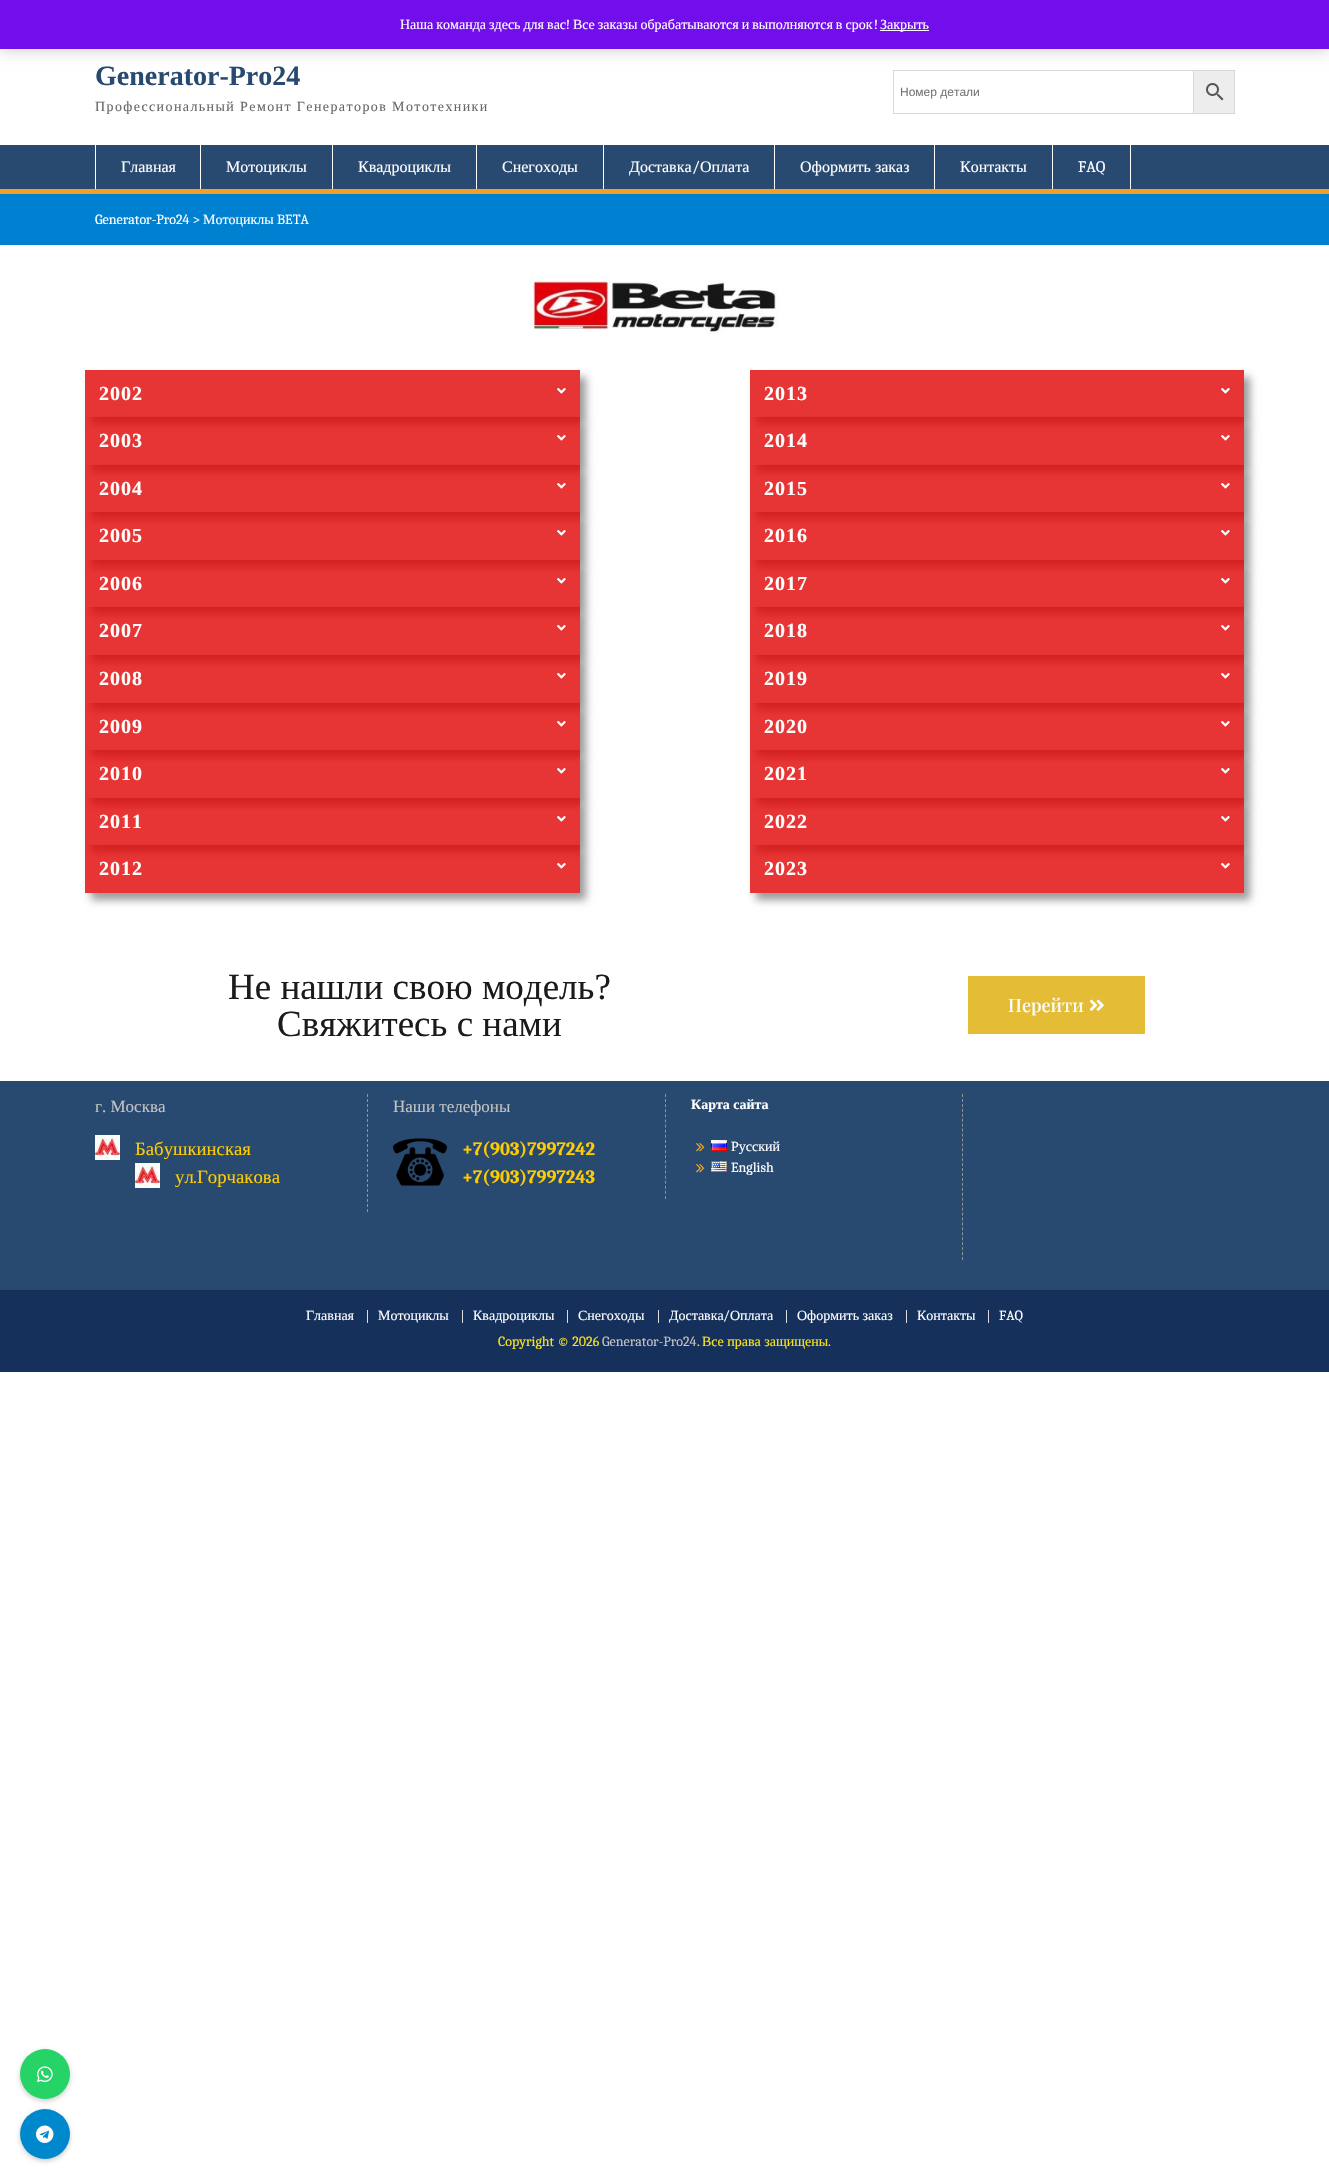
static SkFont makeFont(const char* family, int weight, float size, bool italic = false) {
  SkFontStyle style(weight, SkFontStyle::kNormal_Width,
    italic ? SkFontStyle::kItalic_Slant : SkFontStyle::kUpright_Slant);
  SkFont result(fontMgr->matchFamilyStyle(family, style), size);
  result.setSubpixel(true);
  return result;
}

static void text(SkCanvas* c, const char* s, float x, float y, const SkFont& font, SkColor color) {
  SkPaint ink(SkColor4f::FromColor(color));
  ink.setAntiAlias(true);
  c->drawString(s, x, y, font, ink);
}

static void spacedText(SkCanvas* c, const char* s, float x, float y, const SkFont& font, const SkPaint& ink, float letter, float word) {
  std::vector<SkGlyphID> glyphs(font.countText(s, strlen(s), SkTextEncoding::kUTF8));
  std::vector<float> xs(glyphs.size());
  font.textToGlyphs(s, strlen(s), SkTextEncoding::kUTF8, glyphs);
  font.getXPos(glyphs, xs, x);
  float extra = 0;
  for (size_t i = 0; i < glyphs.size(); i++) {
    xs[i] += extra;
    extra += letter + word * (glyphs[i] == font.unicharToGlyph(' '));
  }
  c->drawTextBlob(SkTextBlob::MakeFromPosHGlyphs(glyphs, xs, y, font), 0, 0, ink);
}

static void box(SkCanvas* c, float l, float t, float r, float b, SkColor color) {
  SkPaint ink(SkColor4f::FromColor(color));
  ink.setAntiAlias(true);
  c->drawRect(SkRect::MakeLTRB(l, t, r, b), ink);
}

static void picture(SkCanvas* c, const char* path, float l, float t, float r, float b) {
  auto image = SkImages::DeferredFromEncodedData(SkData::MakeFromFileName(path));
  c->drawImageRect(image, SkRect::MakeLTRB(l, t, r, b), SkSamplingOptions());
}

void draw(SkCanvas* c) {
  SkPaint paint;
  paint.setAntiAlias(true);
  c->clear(0xffffffff);
  paint.setColor(0xffededed);
  c->drawRect(SkRect::MakeLTRB(1193.5f, 70.5f, 1234.5f, 113.5f), paint);
  paint.setStyle(SkPaint::kStroke_Style);
  paint.setStrokeWidth(1);
  paint.setColor(0xffd8d8d8);
  c->drawRect(SkRect::MakeLTRB(1193.5f, 70.5f, 1234.5f, 113.5f), paint);
  c->drawRect(SkRect::MakeLTRB(893.5f, 70.5f, 1193.5f, 113.5f), paint);
  paint.setStyle(SkPaint::kFill_Style);
  paint.setColor(0x33000000);
  paint.setMaskFilter(SkMaskFilter::MakeBlur(kNormal_SkBlurStyle, 7));
  c->drawRect(SkRect::MakeLTRB(0, 1, 1329, 50), paint);
  paint.setMaskFilter(nullptr);
  box(c, 0, 0, 1329, 49, 0xff720eec);
  SkFont face1 = makeFont("Liberation Serif", 400, 14);
  paint.setColor(0xffffffff);
  spacedText(c, "Наша команда здесь для вас", 400, 29, face1, paint, 0, -0.5f);
  SkFont face2 = makeFont("Caladea", 400, 14);
  text(c, "!", 566, 29, face2, 0xffffffff);
  spacedText(c, "Все заказы обрабатываются и выполняются в срок", 573, 29, face1, paint, 0, -0.5f);
  text(c, "!", 874, 29, face2, 0xffffffff);
  box(c, 880, 30, 929, 31, 0xfffcfbfe);
  text(c, "Закрыть", 880, 29, face1, 0xffffffff);
  SkFont face3 = makeFont("Liberation Serif", 700, 28);
  text(c, "Generator-Pro24", 95, 85, face3, 0xff294a70);
  paint.setColor(0xff666666);
  spacedText(c, "Профессиональный Ремонт Генераторов Мототехники", 95, 111, face1, paint, 1.4f, 0);
  SkFont face4 = makeFont("Liberation Sans", 400, 12);
  text(c, "Номер детали", 900, 96, face4, 0xff757575);
  picture(c, "img_01.png", 1206, 83, 1224, 101);
  box(c, 0, 145, 1329, 189, 0xff294a70);
  box(c, 0, 189, 1329, 194, 0xfff4a024);
  box(c, 200, 145, 201, 189, 0xffffffff);
  box(c, 95, 145, 96, 189, 0xffffffff);
  SkFont face5 = makeFont("Liberation Serif", 400, 16);
  text(c, "Главная", 121, 172, face5, 0xffffffff);
  box(c, 332, 145, 333, 189, 0xffffffff);
  text(c, "Мотоциклы", 226, 172, face5, 0xffffffff);
  box(c, 476, 145, 477, 189, 0xffffffff);
  text(c, "Квадроциклы", 358, 172, face5, 0xffffffff);
  box(c, 603, 145, 604, 189, 0xffffffff);
  text(c, "Снегоходы", 502, 172, face5, 0xffffffff);
  box(c, 774, 145, 775, 189, 0xffffffff);
  text(c, "Доставка", 629, 172, face5, 0xffffffff);
  SkFont face6 = makeFont("Caladea", 400, 16);
  text(c, "/", 692, 172, face6, 0xffffffff);
  text(c, "Оплата", 700, 172, face5, 0xffffffff);
  box(c, 934, 145, 935, 189, 0xffffffff);
  text(c, "Оформить заказ", 800, 172, face5, 0xffffffff);
  box(c, 1052, 145, 1053, 189, 0xffffffff);
  text(c, "Контакты", 960, 172, face5, 0xffffffff);
  box(c, 1130, 145, 1131, 189, 0xffffffff);
  text(c, "FAQ", 1078, 172, face6, 0xffffffff);
  box(c, 0, 194, 1329, 245, 0xff0080d1);
  text(c, "Generator-Pro24 >", 95, 224, face2, 0xffffffff);
  text(c, "Мотоциклы", 203, 224, face1, 0xffffffff);
  text(c, "BETA", 277, 224, face2, 0xffffffff);
  picture(c, "img_02.png", 529, 274, 779, 334);
  paint.setColor(0x63000000);
  paint.setMaskFilter(SkMaskFilter::MakeBlur(kNormal_SkBlurStyle, 4));
  c->drawRect(SkRect::MakeLTRB(91, 377, 586, 424), paint);
  paint.setMaskFilter(nullptr);
  box(c, 85, 370, 580, 417, 0xffe73535);
  SkFont face7 = makeFont("Liberation Serif", 700, 20);
  paint.setColor(0xffffffff);
  spacedText(c, "2002", 99, 400, face7, paint, 1, 0);
  picture(c, "img_03.png", 557, 388, 566, 394);
  c->save();
  c->clipPath(SkPathBuilder(SkPathFillType::kEvenOdd).moveTo(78, 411).lineTo(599, 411).lineTo(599, 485).lineTo(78, 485).close().moveTo(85, 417).lineTo(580, 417).lineTo(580, 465).lineTo(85, 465).close().detach(), true);
  paint.setColor(0x63000000);
  paint.setMaskFilter(SkMaskFilter::MakeBlur(kNormal_SkBlurStyle, 4));
  c->drawRect(SkRect::MakeLTRB(91, 424, 586, 472), paint);
  paint.setMaskFilter(nullptr);
  c->restore();
  box(c, 85, 417, 580, 465, 0xcce10202);
  paint.setColor(0xffffffff);
  spacedText(c, "2003", 99, 447, face7, paint, 1, 0);
  picture(c, "img_04.png", 557, 435, 566, 441);
  c->save();
  c->clipPath(SkPathBuilder(SkPathFillType::kEvenOdd).moveTo(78, 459).lineTo(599, 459).lineTo(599, 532).lineTo(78, 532).close().moveTo(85, 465).lineTo(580, 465).lineTo(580, 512).lineTo(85, 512).close().detach(), true);
  paint.setColor(0x63000000);
  paint.setMaskFilter(SkMaskFilter::MakeBlur(kNormal_SkBlurStyle, 4));
  c->drawRect(SkRect::MakeLTRB(91, 472, 586, 519), paint);
  paint.setMaskFilter(nullptr);
  c->restore();
  box(c, 85, 465, 580, 512, 0xcce10202);
  paint.setColor(0xffffffff);
  spacedText(c, "2004", 99, 495, face7, paint, 1, 0);
  picture(c, "img_04.png", 557, 483, 566, 489);
  c->save();
  c->clipPath(SkPathBuilder(SkPathFillType::kEvenOdd).moveTo(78, 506).lineTo(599, 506).lineTo(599, 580).lineTo(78, 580).close().moveTo(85, 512).lineTo(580, 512).lineTo(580, 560).lineTo(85, 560).close().detach(), true);
  paint.setColor(0x63000000);
  paint.setMaskFilter(SkMaskFilter::MakeBlur(kNormal_SkBlurStyle, 4));
  c->drawRect(SkRect::MakeLTRB(91, 519, 586, 567), paint);
  paint.setMaskFilter(nullptr);
  c->restore();
  box(c, 85, 512, 580, 560, 0xcce10202);
  paint.setColor(0xffffffff);
  spacedText(c, "2005", 99, 542, face7, paint, 1, 0);
  picture(c, "img_04.png", 557, 530, 566, 536);
  c->save();
  c->clipPath(SkPathBuilder(SkPathFillType::kEvenOdd).moveTo(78, 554).lineTo(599, 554).lineTo(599, 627).lineTo(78, 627).close().moveTo(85, 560).lineTo(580, 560).lineTo(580, 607).lineTo(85, 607).close().detach(), true);
  paint.setColor(0x63000000);
  paint.setMaskFilter(SkMaskFilter::MakeBlur(kNormal_SkBlurStyle, 4));
  c->drawRect(SkRect::MakeLTRB(91, 567, 586, 614), paint);
  paint.setMaskFilter(nullptr);
  c->restore();
  box(c, 85, 560, 580, 607, 0xcce10202);
  paint.setColor(0xffffffff);
  spacedText(c, "2006", 99, 590, face7, paint, 1, 0);
  picture(c, "img_04.png", 557, 578, 566, 584);
  c->save();
  c->clipPath(SkPathBuilder(SkPathFillType::kEvenOdd).moveTo(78, 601).lineTo(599, 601).lineTo(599, 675).lineTo(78, 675).close().moveTo(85, 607).lineTo(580, 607).lineTo(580, 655).lineTo(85, 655).close().detach(), true);
  paint.setColor(0x63000000);
  paint.setMaskFilter(SkMaskFilter::MakeBlur(kNormal_SkBlurStyle, 4));
  c->drawRect(SkRect::MakeLTRB(91, 614, 586, 662), paint);
  paint.setMaskFilter(nullptr);
  c->restore();
  box(c, 85, 607, 580, 655, 0xcce10202);
  paint.setColor(0xffffffff);
  spacedText(c, "2007", 99, 637, face7, paint, 1, 0);
  picture(c, "img_04.png", 557, 625, 566, 631);
  c->save();
  c->clipPath(SkPathBuilder(SkPathFillType::kEvenOdd).moveTo(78, 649).lineTo(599, 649).lineTo(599, 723).lineTo(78, 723).close().moveTo(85, 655).lineTo(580, 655).lineTo(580, 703).lineTo(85, 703).close().detach(), true);
  paint.setColor(0x63000000);
  paint.setMaskFilter(SkMaskFilter::MakeBlur(kNormal_SkBlurStyle, 4));
  c->drawRect(SkRect::MakeLTRB(91, 662, 586, 710), paint);
  paint.setMaskFilter(nullptr);
  c->restore();
  box(c, 85, 655, 580, 703, 0xcce10202);
  paint.setColor(0xffffffff);
  spacedText(c, "2008", 99, 685, face7, paint, 1, 0);
  picture(c, "img_04.png", 557, 673, 566, 679);
  c->save();
  c->clipPath(SkPathBuilder(SkPathFillType::kEvenOdd).moveTo(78, 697).lineTo(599, 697).lineTo(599, 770).lineTo(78, 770).close().moveTo(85, 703).lineTo(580, 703).lineTo(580, 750).lineTo(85, 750).close().detach(), true);
  paint.setColor(0x63000000);
  paint.setMaskFilter(SkMaskFilter::MakeBlur(kNormal_SkBlurStyle, 4));
  c->drawRect(SkRect::MakeLTRB(91, 710, 586, 757), paint);
  paint.setMaskFilter(nullptr);
  c->restore();
  box(c, 85, 703, 580, 750, 0xcce10202);
  paint.setColor(0xffffffff);
  spacedText(c, "2009", 99, 733, face7, paint, 1, 0);
  picture(c, "img_04.png", 557, 721, 566, 727);
  c->save();
  c->clipPath(SkPathBuilder(SkPathFillType::kEvenOdd).moveTo(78, 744).lineTo(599, 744).lineTo(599, 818).lineTo(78, 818).close().moveTo(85, 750).lineTo(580, 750).lineTo(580, 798).lineTo(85, 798).close().detach(), true);
  paint.setColor(0x63000000);
  paint.setMaskFilter(SkMaskFilter::MakeBlur(kNormal_SkBlurStyle, 4));
  c->drawRect(SkRect::MakeLTRB(91, 757, 586, 805), paint);
  paint.setMaskFilter(nullptr);
  c->restore();
  box(c, 85, 750, 580, 798, 0xcce10202);
  paint.setColor(0xffffffff);
  spacedText(c, "2010", 99, 780, face7, paint, 1, 0);
  picture(c, "img_04.png", 557, 768, 566, 774);
  c->save();
  c->clipPath(SkPathBuilder(SkPathFillType::kEvenOdd).moveTo(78, 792).lineTo(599, 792).lineTo(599, 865).lineTo(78, 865).close().moveTo(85, 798).lineTo(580, 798).lineTo(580, 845).lineTo(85, 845).close().detach(), true);
  paint.setColor(0x63000000);
  paint.setMaskFilter(SkMaskFilter::MakeBlur(kNormal_SkBlurStyle, 4));
  c->drawRect(SkRect::MakeLTRB(91, 805, 586, 852), paint);
  paint.setMaskFilter(nullptr);
  c->restore();
  box(c, 85, 798, 580, 845, 0xcce10202);
  paint.setColor(0xffffffff);
  spacedText(c, "2011", 99, 828, face7, paint, 1, 0);
  picture(c, "img_04.png", 557, 816, 566, 822);
  c->save();
  c->clipPath(SkPathBuilder(SkPathFillType::kEvenOdd).moveTo(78, 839).lineTo(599, 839).lineTo(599, 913).lineTo(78, 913).close().moveTo(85, 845).lineTo(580, 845).lineTo(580, 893).lineTo(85, 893).close().detach(), true);
  paint.setColor(0x63000000);
  paint.setMaskFilter(SkMaskFilter::MakeBlur(kNormal_SkBlurStyle, 4));
  c->drawRect(SkRect::MakeLTRB(91, 852, 586, 900), paint);
  paint.setMaskFilter(nullptr);
  c->restore();
  box(c, 85, 845, 580, 893, 0xcce10202);
  paint.setColor(0xffffffff);
  spacedText(c, "2012", 99, 875, face7, paint, 1, 0);
  picture(c, "img_04.png", 557, 863, 566, 869);
  paint.setColor(0x63000000);
  paint.setMaskFilter(SkMaskFilter::MakeBlur(kNormal_SkBlurStyle, 4));
  c->drawRect(SkRect::MakeLTRB(756, 377, 1250, 424), paint);
  paint.setMaskFilter(nullptr);
  box(c, 750, 370, 1244, 417, 0xffe73535);
  paint.setColor(0xffffffff);
  spacedText(c, "2013", 764, 400, face7, paint, 1, 0);
  picture(c, "img_03.png", 1221, 388, 1230, 394);
  c->save();
  c->clipPath(SkPathBuilder(SkPathFillType::kEvenOdd).moveTo(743, 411).lineTo(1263, 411).lineTo(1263, 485).lineTo(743, 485).close().moveTo(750, 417).lineTo(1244, 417).lineTo(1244, 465).lineTo(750, 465).close().detach(), true);
  paint.setColor(0x63000000);
  paint.setMaskFilter(SkMaskFilter::MakeBlur(kNormal_SkBlurStyle, 4));
  c->drawRect(SkRect::MakeLTRB(756, 424, 1250, 472), paint);
  paint.setMaskFilter(nullptr);
  c->restore();
  box(c, 750, 417, 1244, 465, 0xcce10202);
  paint.setColor(0xffffffff);
  spacedText(c, "2014", 764, 447, face7, paint, 1, 0);
  picture(c, "img_04.png", 1221, 435, 1230, 441);
  c->save();
  c->clipPath(SkPathBuilder(SkPathFillType::kEvenOdd).moveTo(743, 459).lineTo(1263, 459).lineTo(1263, 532).lineTo(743, 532).close().moveTo(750, 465).lineTo(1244, 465).lineTo(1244, 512).lineTo(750, 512).close().detach(), true);
  paint.setColor(0x63000000);
  paint.setMaskFilter(SkMaskFilter::MakeBlur(kNormal_SkBlurStyle, 4));
  c->drawRect(SkRect::MakeLTRB(756, 472, 1250, 519), paint);
  paint.setMaskFilter(nullptr);
  c->restore();
  box(c, 750, 465, 1244, 512, 0xcce10202);
  paint.setColor(0xffffffff);
  spacedText(c, "2015", 764, 495, face7, paint, 1, 0);
  picture(c, "img_04.png", 1221, 483, 1230, 489);
  c->save();
  c->clipPath(SkPathBuilder(SkPathFillType::kEvenOdd).moveTo(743, 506).lineTo(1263, 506).lineTo(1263, 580).lineTo(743, 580).close().moveTo(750, 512).lineTo(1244, 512).lineTo(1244, 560).lineTo(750, 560).close().detach(), true);
  paint.setColor(0x63000000);
  paint.setMaskFilter(SkMaskFilter::MakeBlur(kNormal_SkBlurStyle, 4));
  c->drawRect(SkRect::MakeLTRB(756, 519, 1250, 567), paint);
  paint.setMaskFilter(nullptr);
  c->restore();
  box(c, 750, 512, 1244, 560, 0xcce10202);
  paint.setColor(0xffffffff);
  spacedText(c, "2016", 764, 542, face7, paint, 1, 0);
  picture(c, "img_04.png", 1221, 530, 1230, 536);
  c->save();
  c->clipPath(SkPathBuilder(SkPathFillType::kEvenOdd).moveTo(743, 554).lineTo(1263, 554).lineTo(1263, 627).lineTo(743, 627).close().moveTo(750, 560).lineTo(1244, 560).lineTo(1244, 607).lineTo(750, 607).close().detach(), true);
  paint.setColor(0x63000000);
  paint.setMaskFilter(SkMaskFilter::MakeBlur(kNormal_SkBlurStyle, 4));
  c->drawRect(SkRect::MakeLTRB(756, 567, 1250, 614), paint);
  paint.setMaskFilter(nullptr);
  c->restore();
  box(c, 750, 560, 1244, 607, 0xcce10202);
  paint.setColor(0xffffffff);
  spacedText(c, "2017", 764, 590, face7, paint, 1, 0);
  picture(c, "img_04.png", 1221, 578, 1230, 584);
  c->save();
  c->clipPath(SkPathBuilder(SkPathFillType::kEvenOdd).moveTo(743, 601).lineTo(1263, 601).lineTo(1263, 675).lineTo(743, 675).close().moveTo(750, 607).lineTo(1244, 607).lineTo(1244, 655).lineTo(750, 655).close().detach(), true);
  paint.setColor(0x63000000);
  paint.setMaskFilter(SkMaskFilter::MakeBlur(kNormal_SkBlurStyle, 4));
  c->drawRect(SkRect::MakeLTRB(756, 614, 1250, 662), paint);
  paint.setMaskFilter(nullptr);
  c->restore();
  box(c, 750, 607, 1244, 655, 0xcce10202);
  paint.setColor(0xffffffff);
  spacedText(c, "2018", 764, 637, face7, paint, 1, 0);
  picture(c, "img_04.png", 1221, 625, 1230, 631);
  c->save();
  c->clipPath(SkPathBuilder(SkPathFillType::kEvenOdd).moveTo(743, 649).lineTo(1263, 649).lineTo(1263, 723).lineTo(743, 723).close().moveTo(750, 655).lineTo(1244, 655).lineTo(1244, 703).lineTo(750, 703).close().detach(), true);
  paint.setColor(0x63000000);
  paint.setMaskFilter(SkMaskFilter::MakeBlur(kNormal_SkBlurStyle, 4));
  c->drawRect(SkRect::MakeLTRB(756, 662, 1250, 710), paint);
  paint.setMaskFilter(nullptr);
  c->restore();
  box(c, 750, 655, 1244, 703, 0xcce10202);
  paint.setColor(0xffffffff);
  spacedText(c, "2019", 764, 685, face7, paint, 1, 0);
  picture(c, "img_04.png", 1221, 673, 1230, 679);
  c->save();
  c->clipPath(SkPathBuilder(SkPathFillType::kEvenOdd).moveTo(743, 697).lineTo(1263, 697).lineTo(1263, 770).lineTo(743, 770).close().moveTo(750, 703).lineTo(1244, 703).lineTo(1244, 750).lineTo(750, 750).close().detach(), true);
  paint.setColor(0x63000000);
  paint.setMaskFilter(SkMaskFilter::MakeBlur(kNormal_SkBlurStyle, 4));
  c->drawRect(SkRect::MakeLTRB(756, 710, 1250, 757), paint);
  paint.setMaskFilter(nullptr);
  c->restore();
  box(c, 750, 703, 1244, 750, 0xcce10202);
  paint.setColor(0xffffffff);
  spacedText(c, "2020", 764, 733, face7, paint, 1, 0);
  picture(c, "img_04.png", 1221, 721, 1230, 727);
  c->save();
  c->clipPath(SkPathBuilder(SkPathFillType::kEvenOdd).moveTo(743, 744).lineTo(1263, 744).lineTo(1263, 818).lineTo(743, 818).close().moveTo(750, 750).lineTo(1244, 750).lineTo(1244, 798).lineTo(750, 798).close().detach(), true);
  paint.setColor(0x63000000);
  paint.setMaskFilter(SkMaskFilter::MakeBlur(kNormal_SkBlurStyle, 4));
  c->drawRect(SkRect::MakeLTRB(756, 757, 1250, 805), paint);
  paint.setMaskFilter(nullptr);
  c->restore();
  box(c, 750, 750, 1244, 798, 0xcce10202);
  paint.setColor(0xffffffff);
  spacedText(c, "2021", 764, 780, face7, paint, 1, 0);
  picture(c, "img_04.png", 1221, 768, 1230, 774);
  c->save();
  c->clipPath(SkPathBuilder(SkPathFillType::kEvenOdd).moveTo(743, 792).lineTo(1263, 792).lineTo(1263, 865).lineTo(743, 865).close().moveTo(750, 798).lineTo(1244, 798).lineTo(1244, 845).lineTo(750, 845).close().detach(), true);
  paint.setColor(0x63000000);
  paint.setMaskFilter(SkMaskFilter::MakeBlur(kNormal_SkBlurStyle, 4));
  c->drawRect(SkRect::MakeLTRB(756, 805, 1250, 852), paint);
  paint.setMaskFilter(nullptr);
  c->restore();
  box(c, 750, 798, 1244, 845, 0xcce10202);
  paint.setColor(0xffffffff);
  spacedText(c, "2022", 764, 828, face7, paint, 1, 0);
  picture(c, "img_04.png", 1221, 816, 1230, 822);
  c->save();
  c->clipPath(SkPathBuilder(SkPathFillType::kEvenOdd).moveTo(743, 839).lineTo(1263, 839).lineTo(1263, 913).lineTo(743, 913).close().moveTo(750, 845).lineTo(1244, 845).lineTo(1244, 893).lineTo(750, 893).close().detach(), true);
  paint.setColor(0x63000000);
  paint.setMaskFilter(SkMaskFilter::MakeBlur(kNormal_SkBlurStyle, 4));
  c->drawRect(SkRect::MakeLTRB(756, 852, 1250, 900), paint);
  paint.setMaskFilter(nullptr);
  c->restore();
  box(c, 750, 845, 1244, 893, 0xcce10202);
  paint.setColor(0xffffffff);
  spacedText(c, "2023", 764, 875, face7, paint, 1, 0);
  picture(c, "img_04.png", 1221, 863, 1230, 869);
  SkFont face8 = makeFont("Liberation Serif", 400, 37);
  text(c, "Не нашли свою модель?", 228, 999, face8, 0xff1b1b1b);
  text(c, "Cвяжитесь с нами", 277, 1036, face8, 0xff1b1b1b);
  box(c, 968, 976, 1145, 1034, 0xffe4bc36);
  SkFont face9 = makeFont("Playfair Display", 500, 18);
  text(c, "Перейти", 1008, 1012, face9, 0xffffffff);
  picture(c, "img_05.png", 1089, 999, 1104, 1011);
  box(c, 0, 1081, 1329, 1290, 0xff294a70);
  SkFont face10 = makeFont("Liberation Serif", 400, 17);
  text(c, "г. Москва", 95, 1112, face10, 0xffc2c2c2);
  picture(c, "img_06.png", 95, 1135, 120, 1160);
  SkFont face11 = makeFont("Liberation Serif", 400, 18.75f);
  text(c, "Бабушкинская", 135, 1155, face11, 0xffffcc00);
  picture(c, "img_06.png", 135, 1163, 160, 1188);
  text(c, "ул", 175, 1183, face11, 0xffffcc00);
  SkFont face12 = makeFont("Caladea", 400, 18.75f);
  text(c, ".", 193, 1183, face12, 0xffffcc00);
  text(c, "Горчакова", 197, 1183, face11, 0xffffcc00);
  paint.setStyle(SkPaint::kStroke_Style);
  paint.setColor(0xff939393);
  paint.setPathEffect(SkDashPathEffect::Make({{3, 2}}, 0));
  c->drawPath(SkPathBuilder().moveTo(367.5f, 1094).lineTo(367.5f, 1212).detach(), paint);
  paint.setPathEffect(nullptr);
  text(c, "Наши телефоны", 393, 1112, face10, 0xffc2c2c2);
  picture(c, "img_07.png", 393, 1138, 447, 1186);
  SkFont face13 = makeFont("Caladea", 700, 18.75f);
  text(c, "+7(903)7997242", 462, 1155, face13, 0xffffcc00);
  text(c, "+7(903)7997243", 462, 1183, face13, 0xffffcc00);
  paint.setPathEffect(SkDashPathEffect::Make({{3, 2.1f}}, 0));
  c->drawPath(SkPathBuilder().moveTo(665.5f, 1094).lineTo(665.5f, 1199).detach(), paint);
  paint.setPathEffect(nullptr);
  SkFont face14 = makeFont("Liberation Serif", 700, 14);
  text(c, "Карта сайта", 691, 1109, face14, 0xffffffff);
  picture(c, "img_08.png", 696, 1143, 705, 1152);
  picture(c, "img_09.png", 711, 1140, 727, 1151);
  text(c, "Русский", 731, 1151, face1, 0xffffffff);
  picture(c, "img_08.png", 696, 1164, 705, 1173);
  picture(c, "img_10.png", 711, 1161, 727, 1172);
  text(c, "English", 731, 1172, face2, 0xffffffff);
  paint.setPathEffect(SkDashPathEffect::Make({{3, 1.94f}}, 0));
  c->drawPath(SkPathBuilder().moveTo(962.5f, 1094).lineTo(962.5f, 1260).detach(), paint);
  paint.setPathEffect(nullptr);
  box(c, 0, 1290, 1329, 1372, 0xff15305b);
  text(c, "Главная", 306, 1320, face1, 0xffffffff);
  box(c, 367, 1310, 368, 1323, 0xffdddddd);
  text(c, "Мотоциклы", 378, 1320, face1, 0xffffffff);
  box(c, 462, 1310, 463, 1323, 0xffdddddd);
  text(c, "Квадроциклы", 473, 1320, face1, 0xffffffff);
  box(c, 567, 1310, 568, 1323, 0xffdddddd);
  text(c, "Снегоходы", 578, 1320, face1, 0xffffffff);
  box(c, 658, 1310, 659, 1323, 0xffdddddd);
  text(c, "Доставка", 669, 1320, face1, 0xffffffff);
  text(c, "/", 723, 1320, face2, 0xffffffff);
  text(c, "Оплата", 730, 1320, face1, 0xffffffff);
  box(c, 786, 1310, 787, 1323, 0xffdddddd);
  text(c, "Оформить заказ", 797, 1320, face1, 0xffffffff);
  box(c, 906, 1310, 907, 1323, 0xffdddddd);
  text(c, "Контакты", 917, 1320, face1, 0xffffffff);
  box(c, 988, 1310, 989, 1323, 0xffdddddd);
  text(c, "FAQ", 999, 1320, face2, 0xffffffff);
  text(c, "Copyright © 2026", 498, 1346, face2, 0xfff7e222);
  text(c, "Generator-Pro24", 602, 1346, face2, 0xffc2c2c2);
  text(c, ".", 697, 1346, face2, 0xfff7e222);
  text(c, "Все права защищены", 702, 1346, face1, 0xfff7e222);
  text(c, ".", 828, 1346, face2, 0xfff7e222);
  paint.setStyle(SkPaint::kFill_Style);
  paint.setColor(0x33000000);
  paint.setMaskFilter(SkMaskFilter::MakeBlur(kNormal_SkBlurStyle, 2.5f));
  c->drawRoundRect(SkRect::MakeLTRB(20, 2051, 70, 2101), 25, 25, paint);
  paint.setMaskFilter(nullptr);
  paint.setColor(0xff25d366);
  c->drawCircle(45, 2074, 25, paint);
  picture(c, "img_11.png", 37, 2066, 53, 2083);
  paint.setColor(0x33000000);
  paint.setMaskFilter(SkMaskFilter::MakeBlur(kNormal_SkBlurStyle, 2.5f));
  c->drawRoundRect(SkRect::MakeLTRB(20, 2111, 70, 2161), 25, 25, paint);
  paint.setMaskFilter(nullptr);
  paint.setColor(0xff0088cc);
  c->drawCircle(45, 2134, 25, paint);
  picture(c, "img_12.png", 36, 2125, 54, 2143);
}
